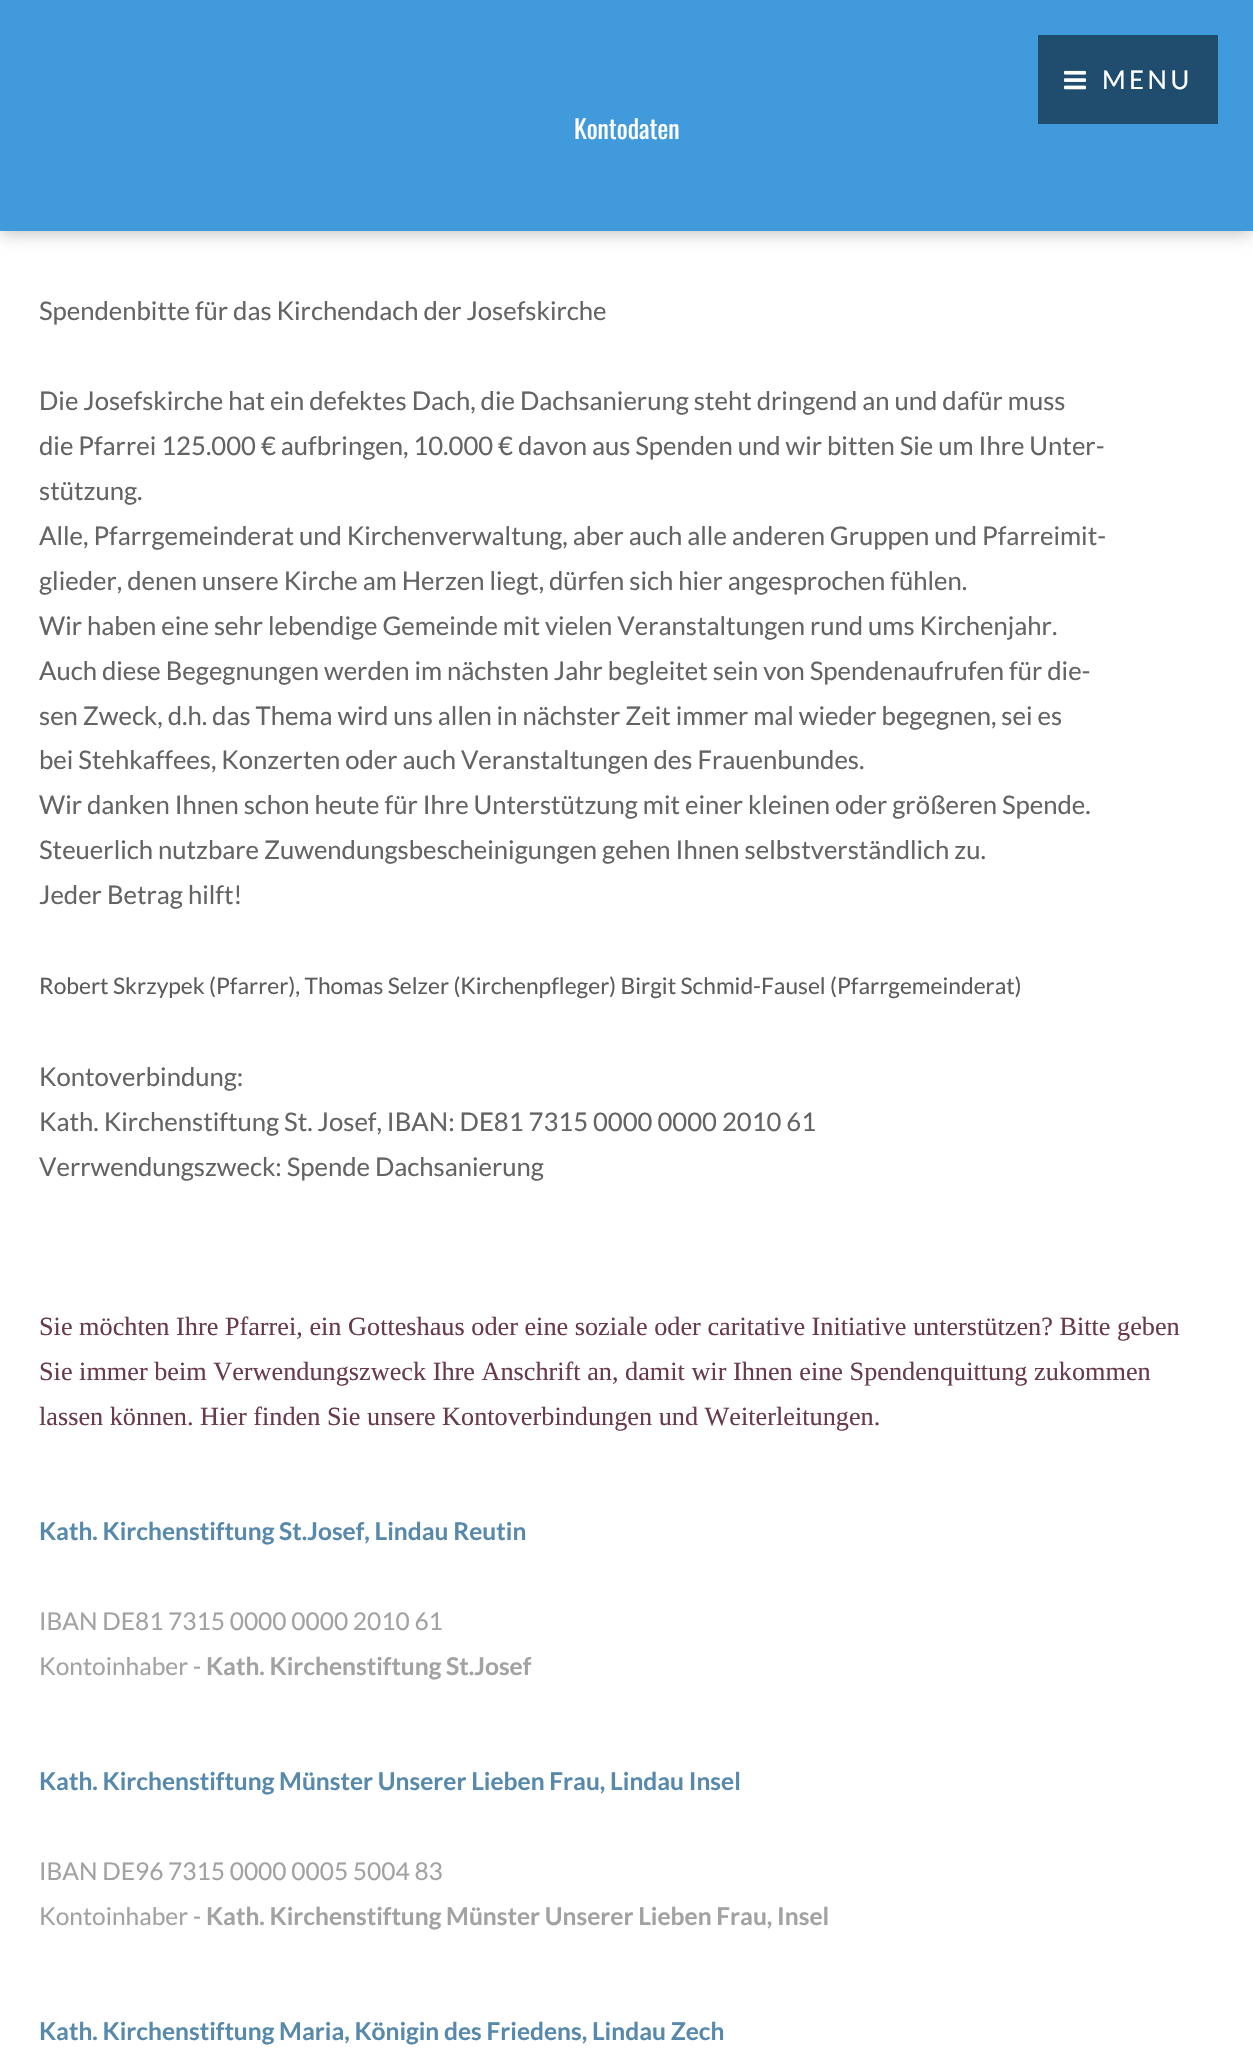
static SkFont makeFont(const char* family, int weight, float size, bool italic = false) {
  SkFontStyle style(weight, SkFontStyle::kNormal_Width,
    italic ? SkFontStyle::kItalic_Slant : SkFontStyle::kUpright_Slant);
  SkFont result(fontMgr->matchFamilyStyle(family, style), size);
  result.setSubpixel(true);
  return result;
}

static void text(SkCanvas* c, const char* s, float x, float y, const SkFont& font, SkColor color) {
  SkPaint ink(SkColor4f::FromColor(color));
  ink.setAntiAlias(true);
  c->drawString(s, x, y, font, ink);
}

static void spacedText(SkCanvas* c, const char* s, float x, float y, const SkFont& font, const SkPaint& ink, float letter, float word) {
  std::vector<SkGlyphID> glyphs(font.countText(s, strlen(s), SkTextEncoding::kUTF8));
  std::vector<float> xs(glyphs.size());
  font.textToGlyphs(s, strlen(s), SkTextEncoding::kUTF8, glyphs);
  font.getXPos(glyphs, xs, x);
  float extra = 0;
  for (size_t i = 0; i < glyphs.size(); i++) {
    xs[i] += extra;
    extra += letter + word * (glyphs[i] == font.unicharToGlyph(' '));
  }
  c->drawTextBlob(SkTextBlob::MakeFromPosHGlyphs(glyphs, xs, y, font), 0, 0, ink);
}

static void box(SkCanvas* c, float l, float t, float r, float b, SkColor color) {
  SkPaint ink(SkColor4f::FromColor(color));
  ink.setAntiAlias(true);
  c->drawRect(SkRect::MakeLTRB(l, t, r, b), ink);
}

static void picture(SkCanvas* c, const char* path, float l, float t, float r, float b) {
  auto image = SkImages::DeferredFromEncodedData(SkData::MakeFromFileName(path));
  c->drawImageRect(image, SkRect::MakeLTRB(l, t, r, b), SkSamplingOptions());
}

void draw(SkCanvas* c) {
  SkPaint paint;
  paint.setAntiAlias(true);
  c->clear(0xffffffff);
  paint.setColor(0x4d000000);
  paint.setMaskFilter(SkMaskFilter::MakeBlur(kNormal_SkBlurStyle, 9));
  c->drawRect(SkRect::MakeLTRB(0, 0, 1253, 231), paint);
  paint.setMaskFilter(nullptr);
  box(c, 0, 0, 1253, 231, 0xff409adc);
  box(c, 1038, 35, 1218, 124, 0xff204d6e);
  picture(c, "img_01.png", 1064, 70, 1086, 90);
  SkFont face1 = makeFont("Lato", 400, 25.65f);
  paint.setColor(0xffffffff);
  spacedText(c, "MENU", 1102, 89, face1, paint, 3.5f, 0);
  SkFont face2 = makeFont("Oswald", 400, 25.65f);
  text(c, "Kontodaten", 574, 139, face2, 0xffffffff);
  text(c, "Spendenbitte für das Kirchendach der Josefskirche", 39, 320, face1, 0xff646464);
  text(c, "Die Josefskirche hat ein defektes Dach, die Dachsanierung steht dringend an und dafür muss", 39, 410, face1, 0xff646464);
  text(c, "die Pfarrei 125.000 € aufbringen, 10.000 € davon aus Spenden und wir bitten Sie um Ihre Unter-", 39, 455, face1, 0xff646464);
  text(c, "stützung.", 39, 500, face1, 0xff646464);
  text(c, "Alle, Pfarrgemeinderat und Kirchenverwaltung, aber auch alle anderen Gruppen und Pfarreimit-", 39, 545, face1, 0xff646464);
  text(c, "glieder, denen unsere Kirche am Herzen liegt, dürfen sich hier angesprochen fühlen.", 39, 590, face1, 0xff646464);
  text(c, "Wir haben eine sehr lebendige Gemeinde mit vielen Veranstaltungen rund ums Kirchenjahr.", 39, 635, face1, 0xff646464);
  text(c, "Auch diese Begegnungen werden im nächsten Jahr begleitet sein von Spendenaufrufen für die-", 39, 680, face1, 0xff646464);
  text(c, "sen Zweck, d.h. das Thema wird uns allen in nächster Zeit immer mal wieder begegnen, sei es", 39, 725, face1, 0xff646464);
  text(c, "bei Stehkaffees, Konzerten oder auch Veranstaltungen des Frauenbundes.", 39, 769, face1, 0xff646464);
  text(c, "Wir danken Ihnen schon heute für Ihre Unterstützung mit einer kleinen oder größeren Spende.", 39, 814, face1, 0xff646464);
  text(c, "Steuerlich nutzbare Zuwendungsbescheinigungen gehen Ihnen selbstverständlich zu.", 39, 859, face1, 0xff646464);
  text(c, "Jeder Betrag hilft!", 39, 904, face1, 0xff646464);
  SkFont face3 = makeFont("Lato", 400, 22.75f);
  text(c, "Robert Skrzypek (Pfarrer), Thomas Selzer (Kirchenpfleger) Birgit Schmid-Fausel (Pfarrgemeinderat)", 39, 994, face3, 0xff5c5c5c);
  text(c, "Kontoverbindung:", 39, 1086, face1, 0xff646464);
  text(c, "Kath. Kirchenstiftung St. Josef, IBAN: DE81 7315 0000 0000 2010 61", 39, 1131, face1, 0xff646464);
  text(c, "Verrwendungszweck: Spende Dachsanierung", 39, 1176, face1, 0xff646464);
  SkFont face4 = makeFont("Liberation Serif", 400, 26.25f);
  text(c, "Sie möchten Ihre Pfarrei, ein Gotteshaus oder eine soziale oder caritative Initiative unterstützen? Bitte geben", 39, 1335, face4, 0xff693b49);
  text(c, "Sie immer beim Verwendungszweck Ihre Anschrift an, damit wir Ihnen eine Spendenquittung zukommen", 39, 1380, face4, 0xff693b49);
  text(c, "lassen können. Hier finden Sie unsere Kontoverbindungen und Weiterleitungen.", 39, 1425, face4, 0xff693b49);
  SkFont face5 = makeFont("Lato", 700, 24.5f);
  text(c, "Kath. Kirchenstiftung St.Josef, Lindau Reutin", 39, 1540, face5, 0xff5789ad);
  SkFont face6 = makeFont("Lato", 400, 24.5f);
  text(c, "IBAN DE81 7315 0000 0000 2010 61", 39, 1630, face6, 0xffa2a2a2);
  text(c, "Kontoinhaber -", 39, 1675, face6, 0xffa2a2a2);
  text(c, "Kath. Kirchenstiftung St.Josef", 206, 1675, face5, 0xffa2a2a2);
  text(c, "Kath. Kirchenstiftung Münster Unserer Lieben Frau, Lindau Insel", 39, 1790, face5, 0xff5789ad);
  text(c, "IBAN DE96 7315 0000 0005 5004 83", 39, 1880, face6, 0xffa2a2a2);
  text(c, "Kontoinhaber -", 39, 1925, face6, 0xffa2a2a2);
  text(c, "Kath. Kirchenstiftung Münster Unserer Lieben Frau, Insel", 206, 1925, face5, 0xffa2a2a2);
  text(c, "Kath. Kirchenstiftung Maria, Königin des Friedens, Lindau Zech", 39, 2040, face5, 0xff5789ad);
}
